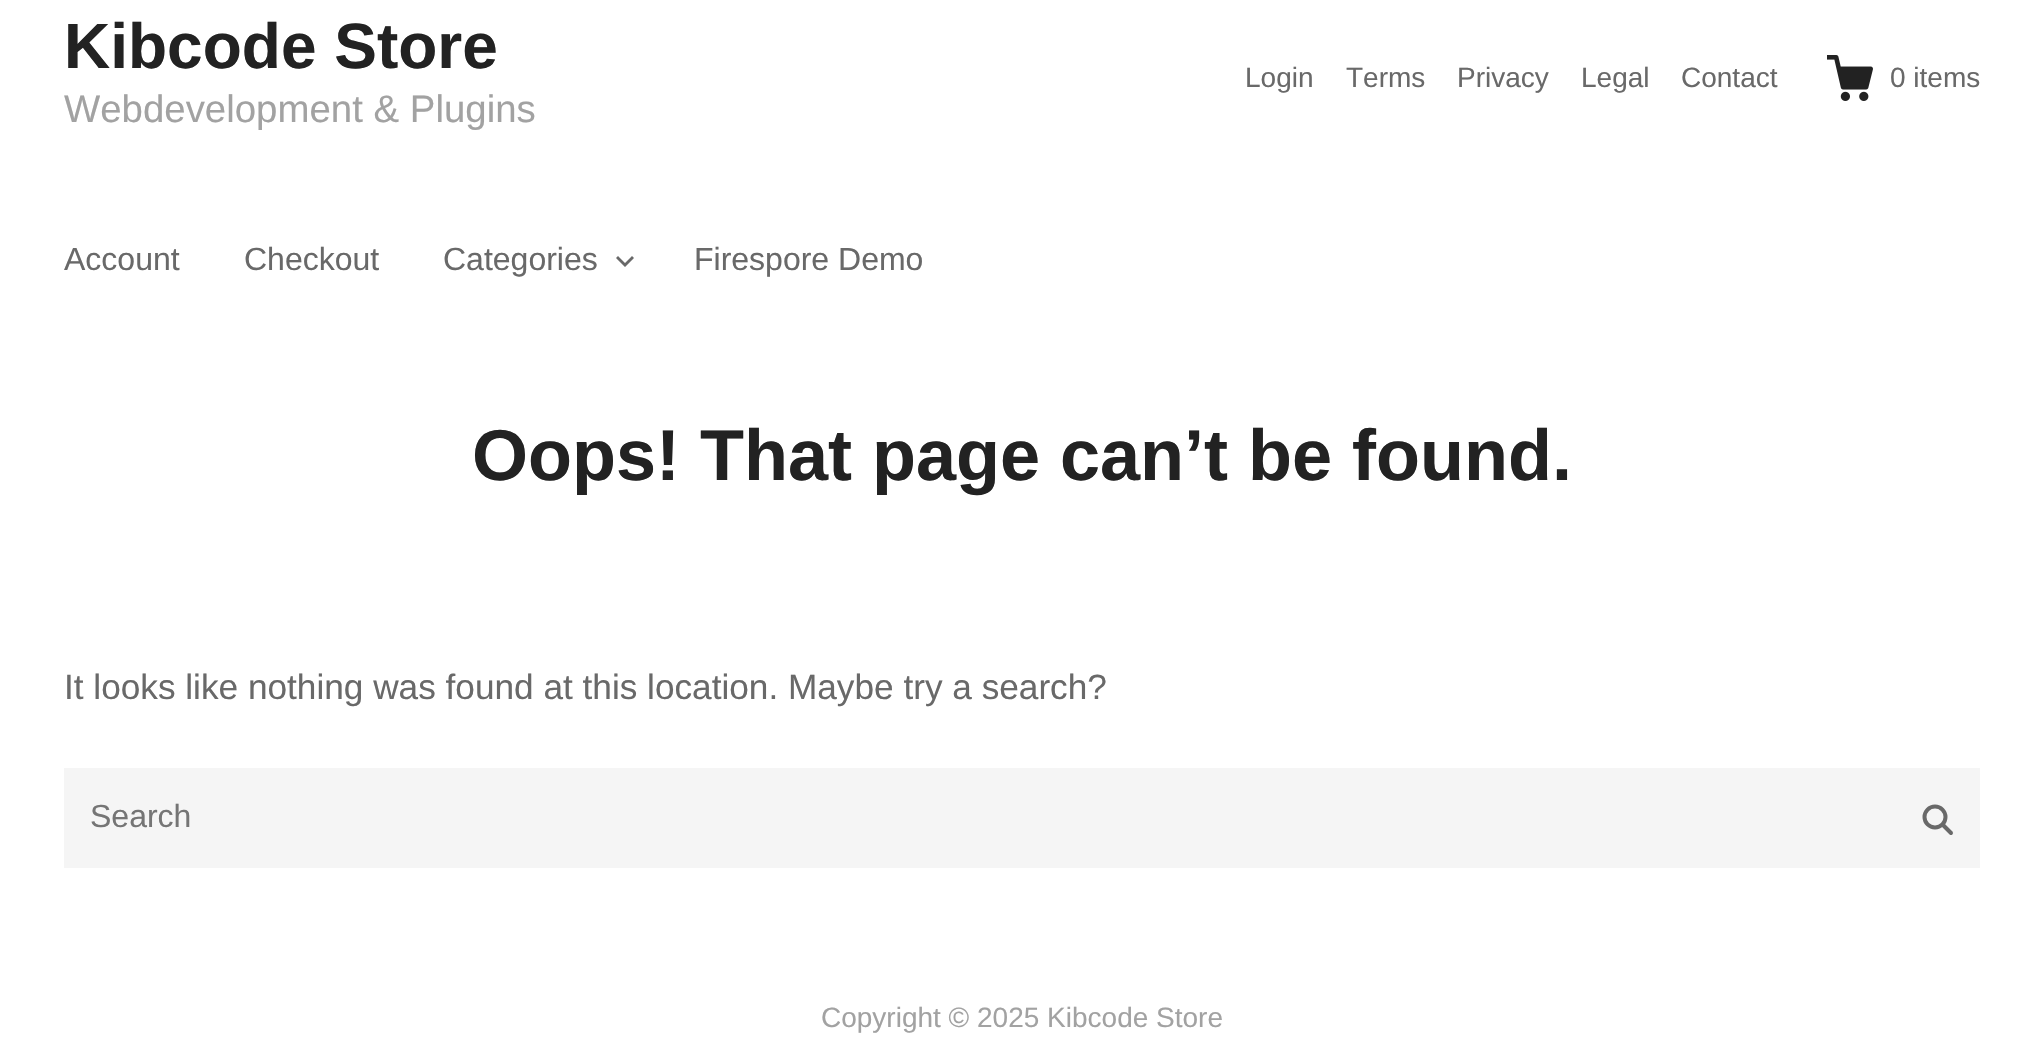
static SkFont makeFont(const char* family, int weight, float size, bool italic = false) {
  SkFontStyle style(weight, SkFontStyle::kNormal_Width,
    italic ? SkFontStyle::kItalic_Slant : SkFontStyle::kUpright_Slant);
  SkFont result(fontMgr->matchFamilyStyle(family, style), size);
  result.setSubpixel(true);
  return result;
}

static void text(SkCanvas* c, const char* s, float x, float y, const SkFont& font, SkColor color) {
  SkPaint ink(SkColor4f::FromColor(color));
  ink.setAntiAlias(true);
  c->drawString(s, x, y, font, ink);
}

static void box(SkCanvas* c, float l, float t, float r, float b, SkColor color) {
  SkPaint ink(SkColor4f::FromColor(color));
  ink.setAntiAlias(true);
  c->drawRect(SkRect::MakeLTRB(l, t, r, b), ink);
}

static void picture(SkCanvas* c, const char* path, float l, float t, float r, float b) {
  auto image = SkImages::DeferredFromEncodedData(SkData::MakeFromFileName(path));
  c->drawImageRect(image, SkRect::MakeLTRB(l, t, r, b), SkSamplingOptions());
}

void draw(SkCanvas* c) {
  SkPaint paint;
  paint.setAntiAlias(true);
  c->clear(0xffffffff);
  SkFont face1 = makeFont("Liberation Sans", 700, 64);
  text(c, "Kibcode Store", 64, 68, face1, 0xff222222);
  SkFont face2 = makeFont("Liberation Sans", 400, 38.4f);
  text(c, "Webdevelopment & Plugins", 64, 122, face2, 0xffa2a2a2);
  SkFont face3 = makeFont("Liberation Sans", 400, 28);
  text(c, "Login", 1245, 87, face3, 0xff696969);
  text(c, "Terms", 1346, 87, face3, 0xff696969);
  text(c, "Privacy", 1457, 87, face3, 0xff696969);
  text(c, "Legal", 1581, 87, face3, 0xff696969);
  text(c, "Contact", 1681, 87, face3, 0xff696969);
  picture(c, "img_01.png", 1827, 55, 1873, 101);
  text(c, "0 items", 1890, 87, face3, 0xff696969);
  SkFont face4 = makeFont("Liberation Sans", 400, 32);
  text(c, "Account", 64, 270, face4, 0xff696969);
  text(c, "Checkout", 244, 270, face4, 0xff696969);
  text(c, "Categories", 443, 270, face4, 0xff696969);
  paint.setColor(0xff696969);
  c->drawPath(SkPathBuilder().moveTo(632, 256).lineTo(634, 258).lineTo(625, 267).lineTo(616, 258).lineTo(618, 256).lineTo(625, 263).close().detach(), paint);
  text(c, "Firespore Demo", 694, 270, face4, 0xff696969);
  SkFont face5 = makeFont("Liberation Sans", 700, 72);
  text(c, "Oops! That page can’t be found.", 472, 480, face5, 0xff222222);
  SkFont face6 = makeFont("Liberation Sans", 400, 35.2f);
  text(c, "It looks like nothing was found at this location. Maybe try a search?", 64, 699, face6, 0xff696969);
  box(c, 64, 768, 1980, 868, 0xfff5f5f5);
  text(c, "Search", 90, 827, face4, 0xff757575);
  paint.setStyle(SkPaint::kStroke_Style);
  paint.setStrokeWidth(4);
  c->drawCircle(1935, 817, 10.5f, paint);
  paint.setStrokeCap(SkPaint::kRound_Cap);
  paint.setStrokeJoin(SkPaint::kRound_Join);
  c->drawPath(SkPathBuilder().moveTo(1942.5f, 824.5f).lineTo(1951, 833).detach(), paint);
  text(c, "Copyright © 2025 Kibcode Store", 821, 1027, face3, 0xffa2a2a2);
}
